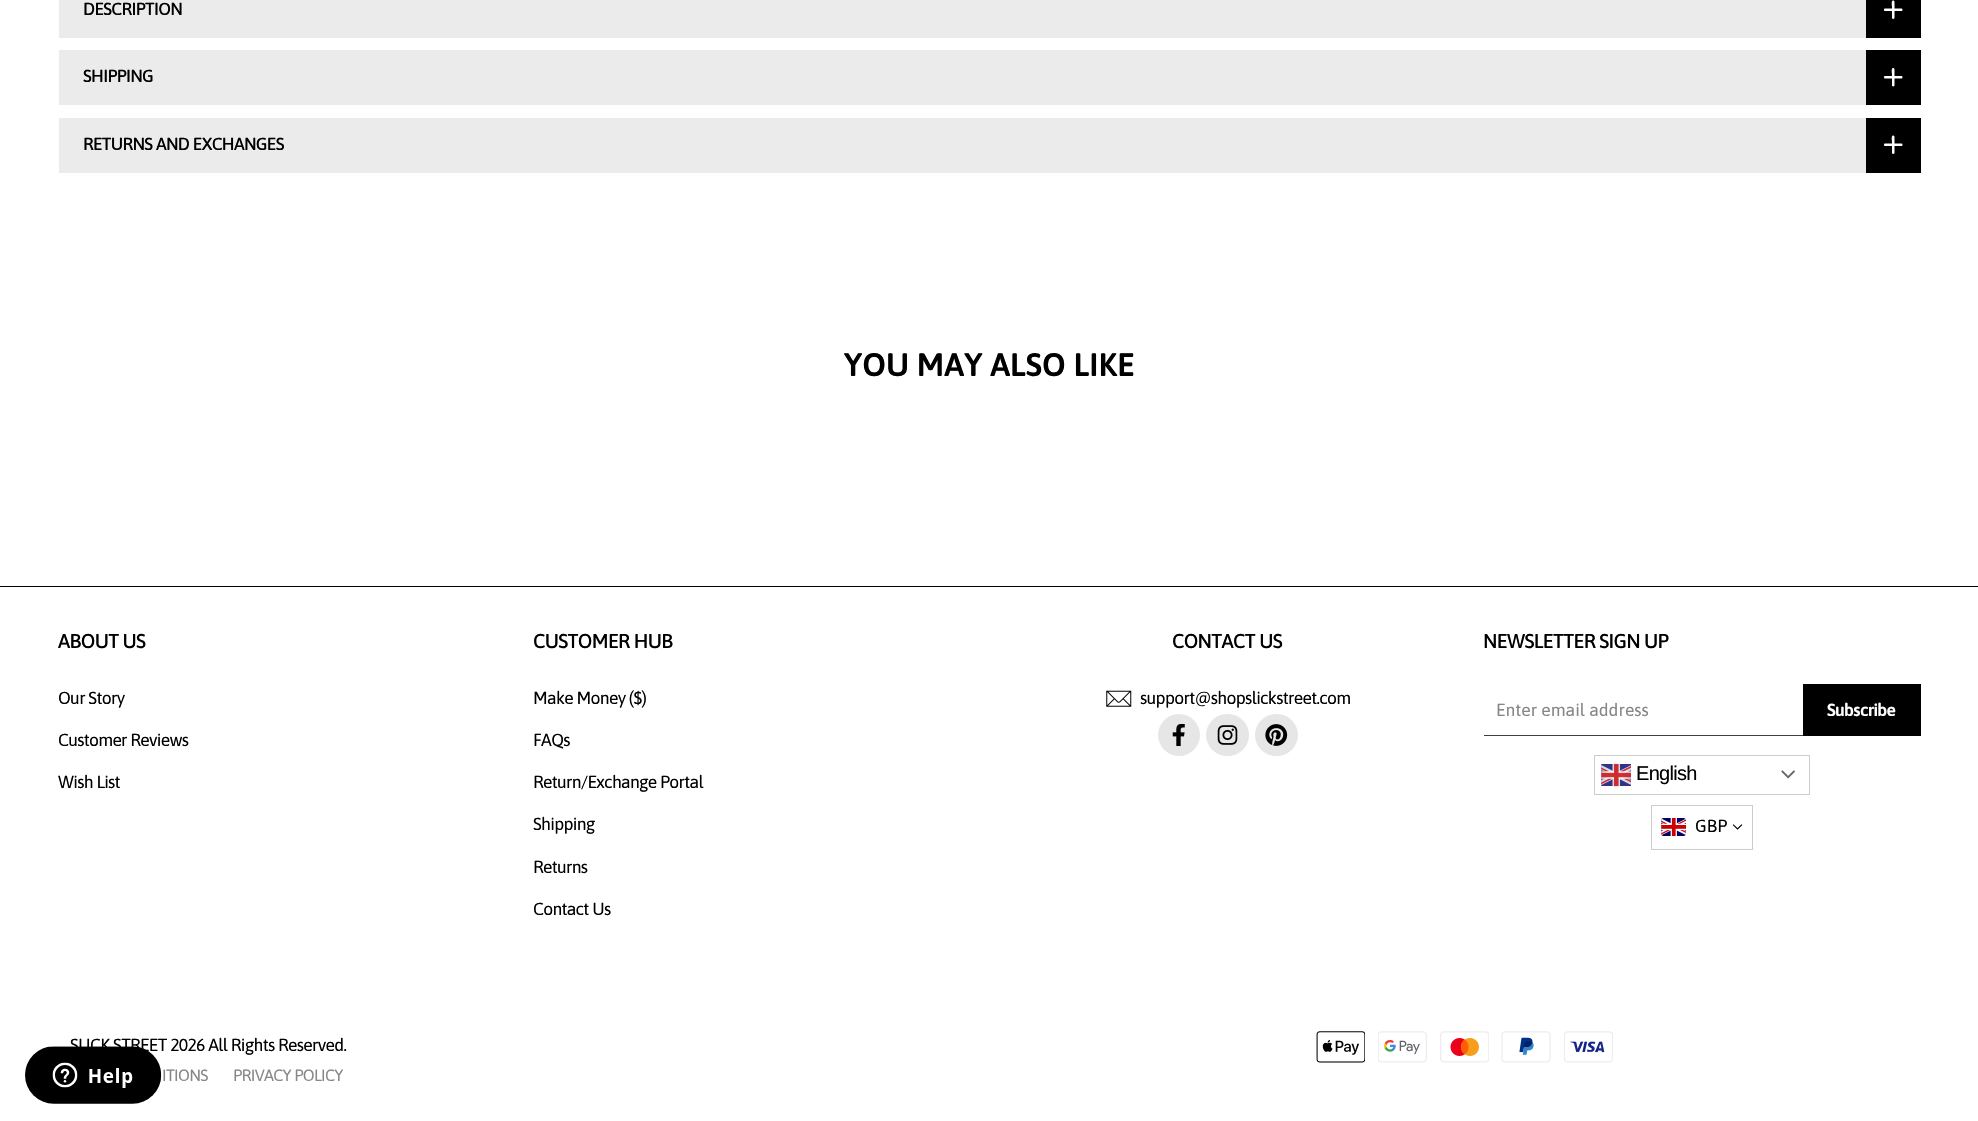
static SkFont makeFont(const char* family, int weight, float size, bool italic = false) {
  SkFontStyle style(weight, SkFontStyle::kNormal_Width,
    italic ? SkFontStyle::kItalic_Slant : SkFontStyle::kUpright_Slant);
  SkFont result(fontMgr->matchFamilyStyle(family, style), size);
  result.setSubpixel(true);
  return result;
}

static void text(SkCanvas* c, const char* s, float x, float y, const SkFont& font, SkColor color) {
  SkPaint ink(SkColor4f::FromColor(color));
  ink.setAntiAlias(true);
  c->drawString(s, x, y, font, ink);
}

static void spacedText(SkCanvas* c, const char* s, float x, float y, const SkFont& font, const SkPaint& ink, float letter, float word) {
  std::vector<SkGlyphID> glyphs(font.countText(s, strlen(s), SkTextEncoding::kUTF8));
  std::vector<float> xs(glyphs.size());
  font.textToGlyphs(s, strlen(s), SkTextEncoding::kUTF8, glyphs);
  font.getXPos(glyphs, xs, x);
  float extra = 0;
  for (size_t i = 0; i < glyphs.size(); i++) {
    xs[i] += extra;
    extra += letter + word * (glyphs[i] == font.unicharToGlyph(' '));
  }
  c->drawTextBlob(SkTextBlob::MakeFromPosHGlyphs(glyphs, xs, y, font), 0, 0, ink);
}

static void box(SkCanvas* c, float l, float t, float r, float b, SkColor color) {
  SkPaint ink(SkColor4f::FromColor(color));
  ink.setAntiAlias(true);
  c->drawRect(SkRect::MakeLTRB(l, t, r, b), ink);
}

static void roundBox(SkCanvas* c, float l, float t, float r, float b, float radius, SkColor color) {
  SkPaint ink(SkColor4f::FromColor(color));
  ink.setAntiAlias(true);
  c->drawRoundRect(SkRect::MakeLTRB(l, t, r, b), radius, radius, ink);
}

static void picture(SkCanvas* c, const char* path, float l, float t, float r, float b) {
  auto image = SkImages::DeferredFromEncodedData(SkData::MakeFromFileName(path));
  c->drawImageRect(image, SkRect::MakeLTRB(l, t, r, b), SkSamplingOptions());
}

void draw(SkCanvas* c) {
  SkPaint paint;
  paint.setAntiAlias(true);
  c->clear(0xffffffff);
  box(c, 59, 0, 1866, 38, 0xffebebeb);
  SkFont face1 = makeFont("Asap", 500, 17.5f);
  paint.setColor(0xff000000);
  spacedText(c, "DESCRIPTION", 83, 15, face1, paint, -0.7f, 0);
  box(c, 1866, 0, 1921, 38, 0xff000000);
  paint.setColor(0xffffffff);
  c->drawPath(SkPathBuilder().moveTo(1892, 18).lineTo(1892, 7).cubicTo(1892, 6, 1891, 0.5f, 1893, 0.5f).cubicTo(1895, 0, 1894.5f, 3.5f, 1894.5f, 4).lineTo(1894.5f, 18).cubicTo(1894, 19.5f, 1892, 19, 1892, 18).close().detach(), paint);
  c->drawPath(SkPathBuilder().moveTo(1884, 9.5f).cubicTo(1884, 9, 1884.5f, 8.5f, 1885, 8.5f).lineTo(1901, 8.5f).cubicTo(1902, 8.5f, 1902.5f, 9, 1902.5f, 9.5f).cubicTo(1902.5f, 10.5f, 1902, 11, 1901, 11).lineTo(1885, 11).cubicTo(1884.5f, 11, 1884, 10.5f, 1884, 9.5f).close().detach(), paint);
  box(c, 59, 50, 1866, 105, 0xffebebeb);
  paint.setColor(0xff000000);
  spacedText(c, "SHIPPING", 83, 82, face1, paint, -0.7f, 0);
  box(c, 1866, 50, 1921, 105, 0xff000000);
  paint.setColor(0xffffffff);
  c->drawPath(SkPathBuilder().moveTo(1892, 85.5f).lineTo(1892, 74.5f).cubicTo(1892, 73.5f, 1891, 68, 1893, 68).cubicTo(1895, 67.5f, 1894.5f, 71, 1894.5f, 71.5f).lineTo(1894.5f, 85.5f).cubicTo(1894, 87, 1892, 86.5f, 1892, 85.5f).close().detach(), paint);
  c->drawPath(SkPathBuilder().moveTo(1884, 77).cubicTo(1884, 76.5f, 1884.5f, 76, 1885, 76).lineTo(1901, 76).cubicTo(1902, 76, 1902.5f, 76.5f, 1902.5f, 77).cubicTo(1902.5f, 78, 1902, 78.5f, 1901, 78.5f).lineTo(1885, 78.5f).cubicTo(1884.5f, 78.5f, 1884, 78, 1884, 77).close().detach(), paint);
  box(c, 59, 118, 1866, 173, 0xffebebeb);
  paint.setColor(0xff000000);
  spacedText(c, "RETURNS AND EXCHANGES", 83, 150, face1, paint, -0.7f, 0);
  box(c, 1866, 118, 1921, 173, 0xff000000);
  paint.setColor(0xffffffff);
  c->drawPath(SkPathBuilder().moveTo(1892, 153).lineTo(1892, 142).cubicTo(1892, 141, 1891, 135.5f, 1893, 135.5f).cubicTo(1895, 135, 1894.5f, 138.5f, 1894.5f, 139).lineTo(1894.5f, 153).cubicTo(1894, 154.5f, 1892, 154, 1892, 153).close().detach(), paint);
  c->drawPath(SkPathBuilder().moveTo(1884, 144.5f).cubicTo(1884, 144, 1884.5f, 143.5f, 1885, 143.5f).lineTo(1901, 143.5f).cubicTo(1902, 143.5f, 1902.5f, 144, 1902.5f, 144.5f).cubicTo(1902.5f, 145.5f, 1902, 146, 1901, 146).lineTo(1885, 146).cubicTo(1884.5f, 146, 1884, 145.5f, 1884, 144.5f).close().detach(), paint);
  SkFont face2 = makeFont("Asap", 600, 32.5f);
  text(c, "YOU MAY ALSO LIKE", 844, 376, face2, 0xff000000);
  box(c, 0, 586, 1978, 587, 0xff000000);
  SkFont face3 = makeFont("Asap", 500, 20);
  paint.setColor(0xff000000);
  spacedText(c, "ABOUT US", 58, 648, face3, paint, -0.7f, 0);
  SkFont face4 = makeFont("Asap", 400, 17.5f);
  spacedText(c, "Our Story", 58, 704, face4, paint, -0.7f, 0);
  spacedText(c, "Customer Reviews", 58, 746, face4, paint, -0.7f, 0);
  spacedText(c, "Wish List", 58, 788, face4, paint, -0.7f, 0);
  spacedText(c, "CUSTOMER HUB", 533, 648, face3, paint, -0.7f, 0);
  spacedText(c, "Make Money ($)", 533, 704, face4, paint, -0.7f, 0);
  spacedText(c, "FAQs", 533, 746, face4, paint, -0.7f, 0);
  spacedText(c, "Return/Exchange Portal", 533, 788, face4, paint, -0.7f, 0);
  spacedText(c, "Shipping", 533, 830, face4, paint, -0.7f, 0);
  spacedText(c, "Returns", 533, 873, face4, paint, -0.7f, 0);
  spacedText(c, "Contact Us", 533, 915, face4, paint, -0.7f, 0);
  spacedText(c, "CONTACT US", 1172, 648, face3, paint, -0.7f, 0);
  picture(c, "img_01.png", 1106, 690, 1132, 707);
  spacedText(c, "support@shopslickstreet.com", 1140, 704, face4, paint, -0.7f, 0);
  paint.setColor(0xffe6e6e6);
  c->drawCircle(1179, 735, 21, paint);
  picture(c, "img_02.png", 1172, 724, 1185, 746);
  roundBox(c, 1206, 714, 1249, 756, 21, 0xffe6e6e6);
  picture(c, "img_03.png", 1217, 725, 1238, 745);
  roundBox(c, 1255, 714, 1298, 756, 21, 0xffe6e6e6);
  picture(c, "img_04.png", 1265, 724, 1288, 746);
  paint.setColor(0xff000000);
  spacedText(c, "NEWSLETTER SIGN UP", 1483, 648, face3, paint, -0.7f, 0);
  box(c, 1484, 735, 1804, 736, 0xff404040);
  text(c, "Enter email address", 1496, 716, face4, 0xff878787);
  box(c, 1803, 684, 1921, 736, 0xff000000);
  SkFont face5 = makeFont("Asap", 600, 17.5f);
  paint.setColor(0xffffffff);
  spacedText(c, "Subscribe", 1827, 716, face5, paint, -0.7f, 0);
  paint.setStyle(SkPaint::kStroke_Style);
  paint.setStrokeWidth(1);
  paint.setColor(0xffcccccc);
  c->drawRect(SkRect::MakeLTRB(1594.5f, 755.5f, 1809.5f, 794.5f), paint);
  picture(c, "img_05.png", 1601, 763, 1631, 787);
  SkFont face6 = makeFont("Liberation Sans", 400, 20);
  paint.setStyle(SkPaint::kFill_Style);
  paint.setColor(0xff000000);
  spacedText(c, "English", 1636, 780, face6, paint, -0.7f, 0);
  picture(c, "img_06.png", 1781, 770, 1795, 779);
  paint.setStyle(SkPaint::kStroke_Style);
  paint.setColor(0xffcccccc);
  c->drawRect(SkRect::MakeLTRB(1651.5f, 805.5f, 1752.5f, 849.5f), paint);
  picture(c, "img_07.png", 1661, 818, 1686, 836);
  text(c, "GBP", 1695, 832, face4, 0xff000000);
  paint.setStrokeWidth(1.1f);
  paint.setStrokeCap(SkPaint::kSquare_Cap);
  paint.setColor(0xff000000);
  c->drawPath(SkPathBuilder().moveTo(1741.5f, 825).lineTo(1737.5f, 829).lineTo(1733.5f, 825).detach(), paint);
  paint.setStyle(SkPaint::kFill_Style);
  spacedText(c, "SLICK STREET 2026 All Rights Reserved.", 70, 1051, face4, paint, -0.7f, 0);
  SkFont face7 = makeFont("Asap", 400, 16.25f);
  paint.setColor(0xff878787);
  spacedText(c, "ITIONS", 162, 1081, face7, paint, -0.7f, 0);
  spacedText(c, "PRIVACY POLICY", 233, 1081, face7, paint, -0.7f, 0);
  picture(c, "img_08.png", 1316, 1031, 1365, 1063);
  picture(c, "img_09.png", 1378, 1031, 1427, 1063);
  picture(c, "img_10.png", 1440, 1031, 1489, 1063);
  picture(c, "img_11.png", 1501, 1031, 1551, 1063);
  picture(c, "img_12.png", 1564, 1031, 1613, 1063);
  picture(c, "img_13.png", 25, 1046, 162, 1104);
}
